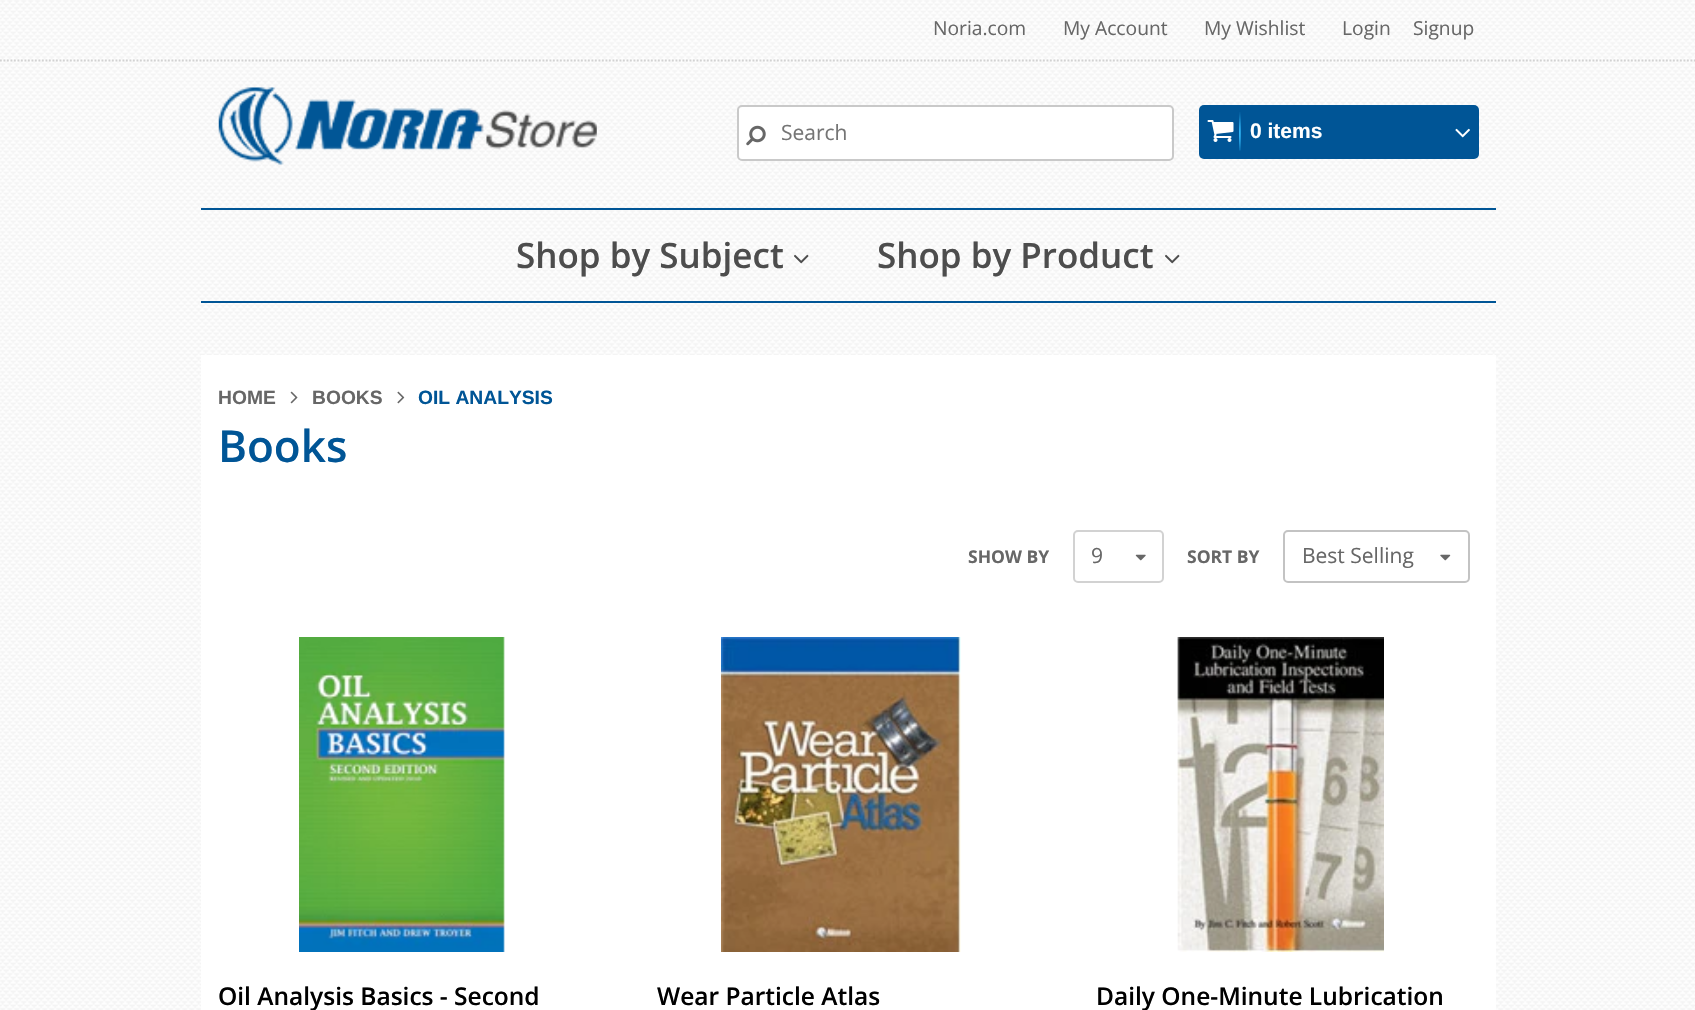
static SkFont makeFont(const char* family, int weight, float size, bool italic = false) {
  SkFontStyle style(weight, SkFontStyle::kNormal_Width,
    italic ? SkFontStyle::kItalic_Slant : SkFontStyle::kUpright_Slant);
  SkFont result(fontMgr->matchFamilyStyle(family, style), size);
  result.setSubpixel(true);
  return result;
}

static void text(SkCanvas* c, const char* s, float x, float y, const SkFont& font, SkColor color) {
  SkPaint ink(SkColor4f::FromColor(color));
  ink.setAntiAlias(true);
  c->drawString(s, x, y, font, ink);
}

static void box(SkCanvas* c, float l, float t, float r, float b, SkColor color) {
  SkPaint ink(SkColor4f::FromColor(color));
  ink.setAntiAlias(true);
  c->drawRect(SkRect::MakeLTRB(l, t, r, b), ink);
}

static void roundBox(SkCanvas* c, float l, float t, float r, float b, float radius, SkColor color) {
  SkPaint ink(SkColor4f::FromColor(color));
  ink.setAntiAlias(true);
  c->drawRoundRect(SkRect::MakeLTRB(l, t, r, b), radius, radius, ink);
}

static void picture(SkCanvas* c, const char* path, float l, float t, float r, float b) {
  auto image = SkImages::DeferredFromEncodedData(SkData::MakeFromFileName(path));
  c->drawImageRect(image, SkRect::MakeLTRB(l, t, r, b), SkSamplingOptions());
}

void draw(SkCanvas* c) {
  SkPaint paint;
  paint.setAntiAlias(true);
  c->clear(0xffffffff);
  picture(c, "img_01.png", 0, 0, 1695, 1010);
  paint.setStyle(SkPaint::kStroke_Style);
  paint.setStrokeWidth(1.8f);
  paint.setColor(0xffd2d2d2);
  paint.setPathEffect(SkDashPathEffect::Make({{1.75f, 1.75f}}, 0));
  c->drawPath(SkPathBuilder().moveTo(0, 60.5f).lineTo(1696, 60.5f).detach(), paint);
  paint.setPathEffect(nullptr);
  SkFont face1 = makeFont("Open Sans", 400, 19.25f);
  text(c, "Noria.com", 933, 35, face1, 0xff676767);
  text(c, "My Account", 1063, 35, face1, 0xff676767);
  text(c, "My Wishlist", 1204, 35, face1, 0xff676767);
  text(c, "Login", 1342, 35, face1, 0xff676767);
  text(c, "Signup", 1413, 35, face1, 0xff676767);
  picture(c, "img_02.png", 218, 87, 597, 165);
  paint.setStyle(SkPaint::kFill_Style);
  paint.setColor(0xffffffff);
  c->drawRoundRect(SkRect::MakeLTRB(738, 106, 1173, 160), 4, 4, paint);
  paint.setStyle(SkPaint::kStroke_Style);
  paint.setStrokeWidth(2);
  paint.setColor(0xffc9c9c9);
  c->drawRoundRect(SkRect::MakeLTRB(738, 106, 1173, 160), 4, 4, paint);
  picture(c, "img_03.png", 746, 125, 766, 146);
  SkFont face2 = makeFont("Open Sans", 400, 21);
  text(c, "Search", 781, 140, face2, 0xff757575);
  roundBox(c, 1199, 105, 1479, 159, 5, 0xff005596);
  picture(c, "img_04.png", 1239, 112, 1241, 151);
  picture(c, "img_05.png", 1207, 120, 1234, 142);
  SkFont face3 = makeFont("Liberation Sans", 700, 21);
  text(c, "0 items", 1250, 138, face3, 0xffffffff);
  picture(c, "img_06.png", 1455, 128, 1470, 138);
  box(c, 201, 208, 1496, 210, 0xff005596);
  box(c, 201, 301, 1496, 303, 0xff005596);
  SkFont face4 = makeFont("Open Sans", 600, 35);
  text(c, "Shop by Subject", 516, 268, face4, 0xff4d4d4d);
  picture(c, "img_07.png", 794, 254, 809, 264);
  text(c, "Shop by Product", 877, 268, face4, 0xff4d4d4d);
  picture(c, "img_08.png", 1165, 254, 1180, 264);
  box(c, 201, 355, 1496, 1010, 0xffffffff);
  SkFont face5 = makeFont("Liberation Sans", 700, 19.25f);
  text(c, "HOME", 218, 404, face5, 0xff676767);
  picture(c, "img_09.png", 290, 391, 298, 404);
  text(c, "BOOKS", 312, 404, face5, 0xff676767);
  picture(c, "img_10.png", 397, 391, 405, 404);
  text(c, "OIL ANALYSIS", 418, 404, face5, 0xff005596);
  SkFont face6 = makeFont("Open Sans", 600, 44);
  text(c, "Books", 218, 462, face6, 0xff005596);
  SkFont face7 = makeFont("Open Sans", 700, 17.5f);
  text(c, "SHOW BY", 968, 563, face7, 0xff676767);
  paint.setColor(0xffd2d2d2);
  c->drawRoundRect(SkRect::MakeLTRB(1074, 531, 1163, 582), 4, 4, paint);
  text(c, "9", 1091, 563, face2, 0xff676767);
  picture(c, "img_11.png", 1135, 554, 1146, 561);
  text(c, "SORT BY", 1187, 563, face7, 0xff676767);
  paint.setColor(0xffc3c3c3);
  c->drawRoundRect(SkRect::MakeLTRB(1284, 531, 1469, 582), 4, 4, paint);
  text(c, "Best Selling", 1302, 563, face2, 0xff676767);
  picture(c, "img_12.png", 1440, 554, 1451, 561);
  picture(c, "img_13.png", 299, 637, 505, 952);
  SkFont face8 = makeFont("Open Sans", 600, 24.5f);
  text(c, "Oil Analysis Basics - Second", 218, 1005, face8, 0xff000000);
  picture(c, "img_14.png", 721, 637, 961, 952);
  text(c, "Wear Particle Atlas", 657, 1005, face8, 0xff000000);
  picture(c, "img_15.png", 1177, 637, 1384, 952);
  text(c, "Daily One-Minute Lubrication", 1096, 1005, face8, 0xff000000);
}
